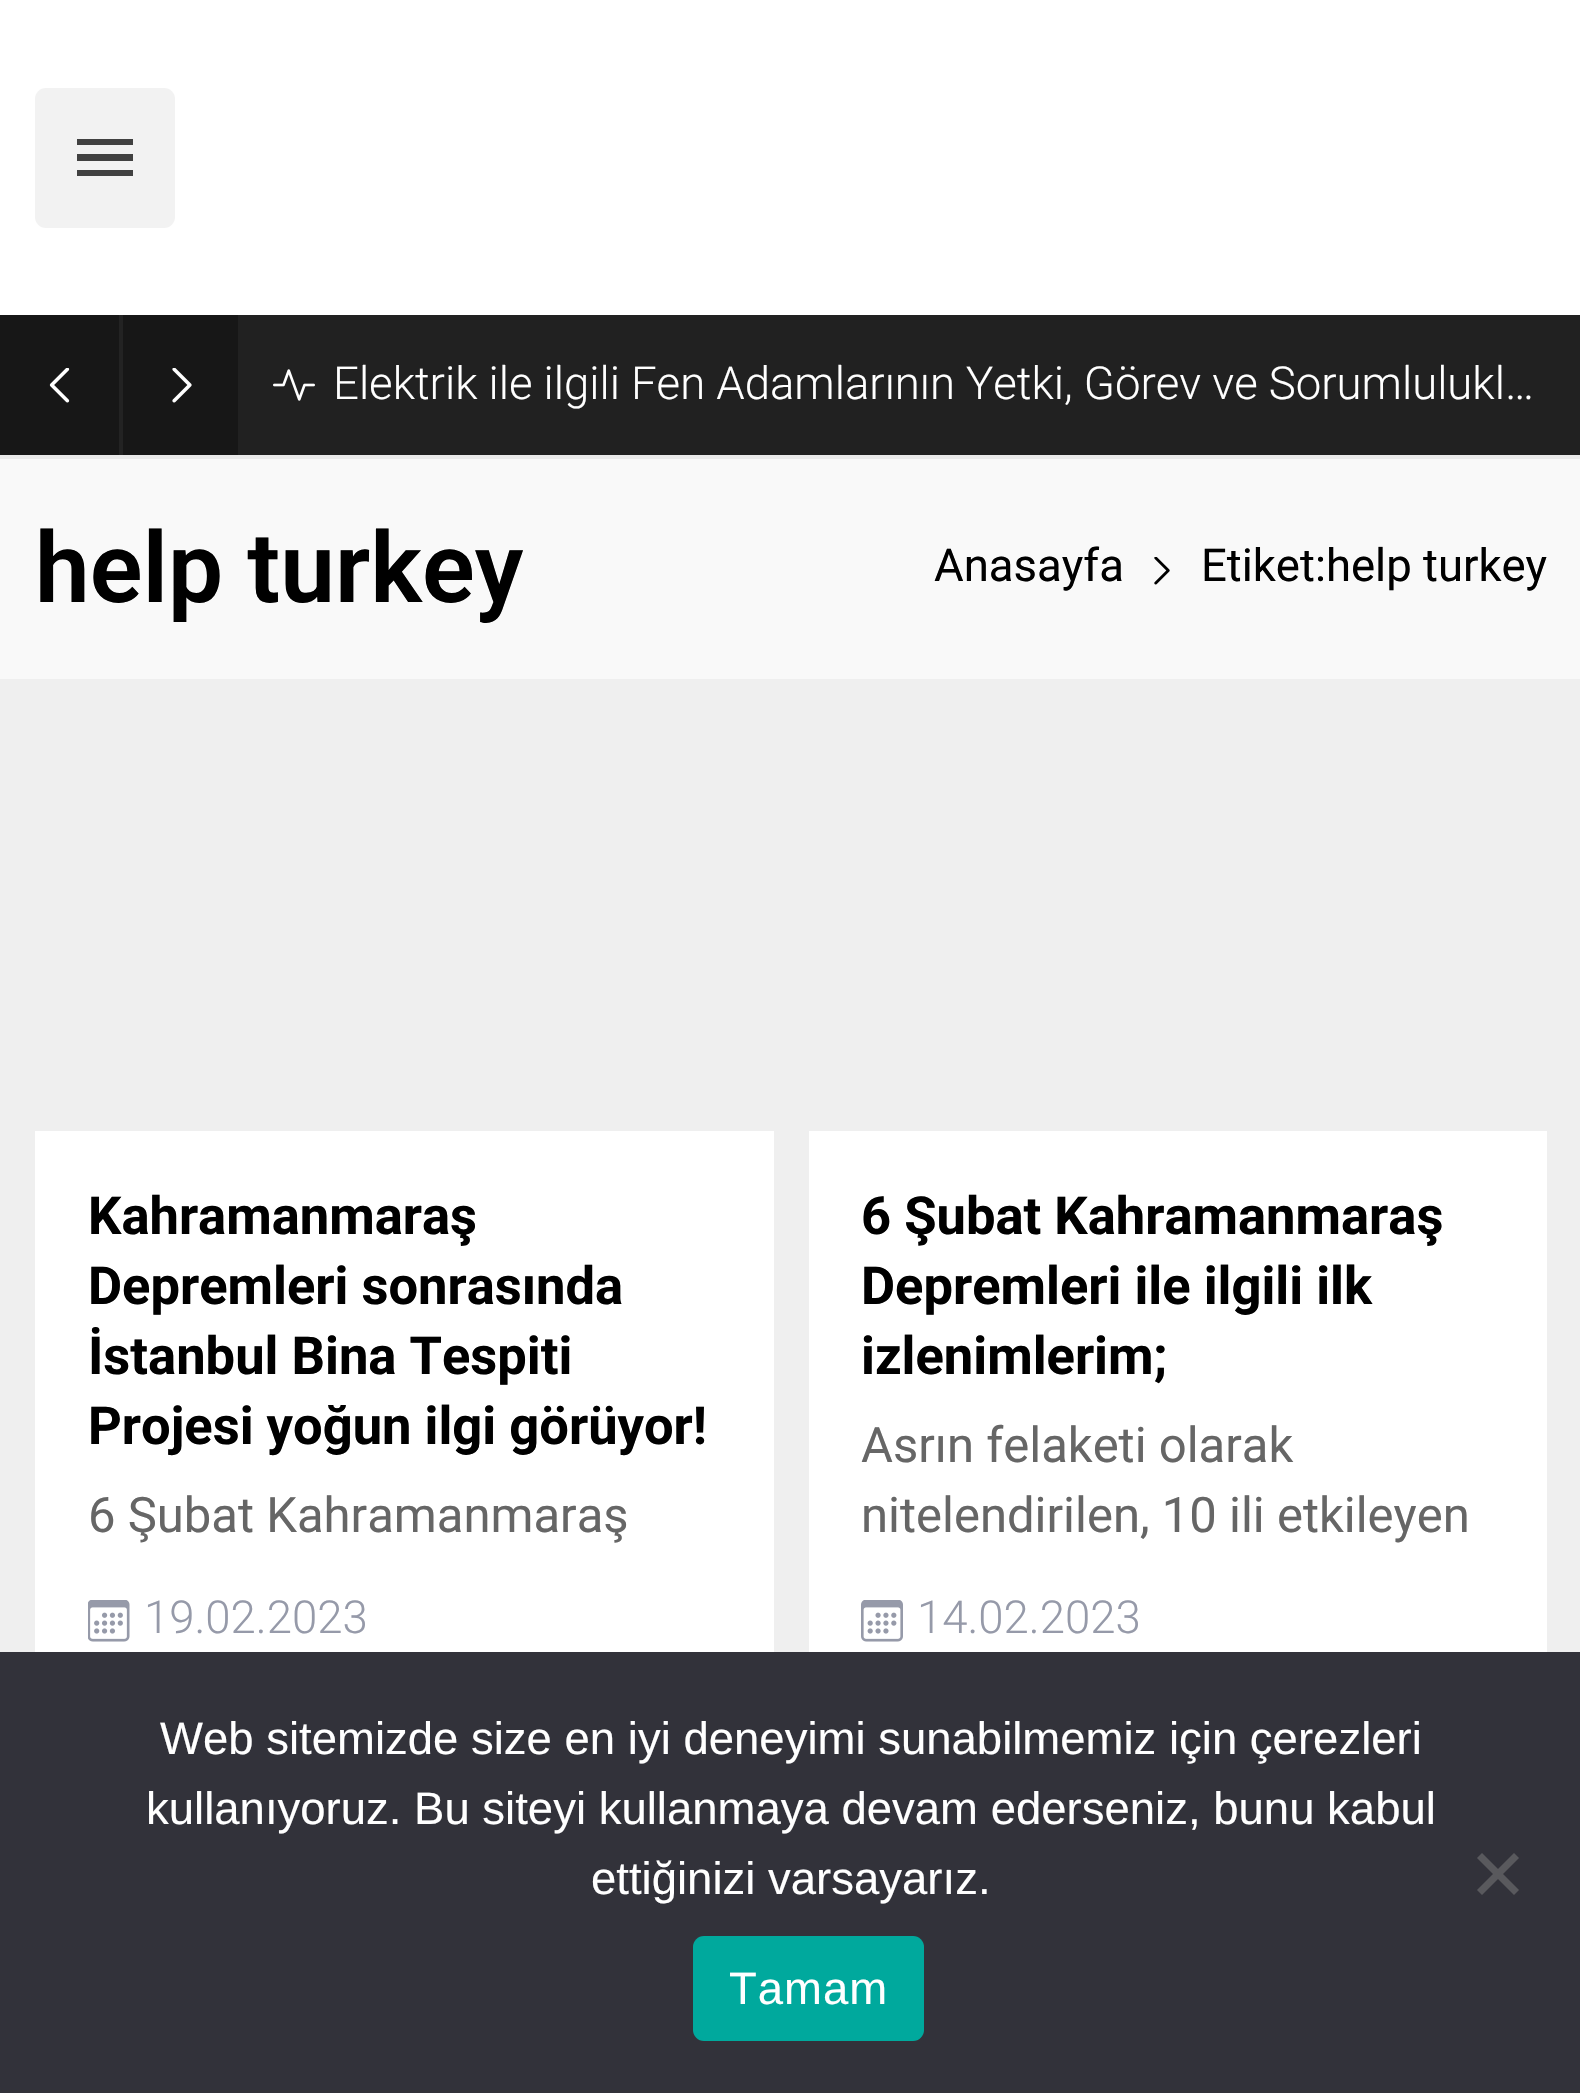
static SkFont makeFont(const char* family, int weight, float size, bool italic = false) {
  SkFontStyle style(weight, SkFontStyle::kNormal_Width,
    italic ? SkFontStyle::kItalic_Slant : SkFontStyle::kUpright_Slant);
  SkFont result(fontMgr->matchFamilyStyle(family, style), size);
  result.setSubpixel(true);
  return result;
}

static void text(SkCanvas* c, const char* s, float x, float y, const SkFont& font, SkColor color) {
  SkPaint ink(SkColor4f::FromColor(color));
  ink.setAntiAlias(true);
  c->drawString(s, x, y, font, ink);
}

static void spacedText(SkCanvas* c, const char* s, float x, float y, const SkFont& font, const SkPaint& ink, float letter, float word) {
  std::vector<SkGlyphID> glyphs(font.countText(s, strlen(s), SkTextEncoding::kUTF8));
  std::vector<float> xs(glyphs.size());
  font.textToGlyphs(s, strlen(s), SkTextEncoding::kUTF8, glyphs);
  font.getXPos(glyphs, xs, x);
  float extra = 0;
  for (size_t i = 0; i < glyphs.size(); i++) {
    xs[i] += extra;
    extra += letter + word * (glyphs[i] == font.unicharToGlyph(' '));
  }
  c->drawTextBlob(SkTextBlob::MakeFromPosHGlyphs(glyphs, xs, y, font), 0, 0, ink);
}

static void box(SkCanvas* c, float l, float t, float r, float b, SkColor color) {
  SkPaint ink(SkColor4f::FromColor(color));
  ink.setAntiAlias(true);
  c->drawRect(SkRect::MakeLTRB(l, t, r, b), ink);
}

static void roundBox(SkCanvas* c, float l, float t, float r, float b, float radius, SkColor color) {
  SkPaint ink(SkColor4f::FromColor(color));
  ink.setAntiAlias(true);
  c->drawRoundRect(SkRect::MakeLTRB(l, t, r, b), radius, radius, ink);
}

static void picture(SkCanvas* c, const char* path, float l, float t, float r, float b) {
  auto image = SkImages::DeferredFromEncodedData(SkData::MakeFromFileName(path));
  c->drawImageRect(image, SkRect::MakeLTRB(l, t, r, b), SkSamplingOptions());
}

void draw(SkCanvas* c) {
  SkPaint paint;
  paint.setAntiAlias(true);
  c->clear(0xffefefef);
  box(c, 0, 455, 1580, 459, 0xffeaeaea);
  box(c, 0, 0, 1580, 315, 0xffffffff);
  roundBox(c, 35, 88, 175, 228, 11, 0xfff2f2f2);
  paint.setColor(0xff414141);
  c->drawPath(SkPathBuilder().moveTo(77, 176).lineTo(133, 176).lineTo(133, 170).lineTo(77, 170).close().moveTo(77, 161).lineTo(133, 161).lineTo(133, 154).lineTo(77, 154).close().moveTo(77, 139).lineTo(77, 145).lineTo(133, 145).lineTo(133, 139).close().detach(), paint);
  box(c, 238, 315, 1580, 455, 0xff212121);
  box(c, 0, 315, 238, 455, 0xff171717);
  picture(c, "img_01.png", 49, 368, 70, 403);
  box(c, 119, 315, 123, 455, 0xff232323);
  picture(c, "img_02.png", 172, 368, 192, 403);
  picture(c, "img_03.png", 273, 369, 315, 401);
  SkFont face1 = makeFont("Roboto", 300, 45.5f);
  text(c, "Elektrik ile ilgili Fen Adamlarının Yetki, Görev ve Sorumlulukl…", 333, 399, face1, 0xffffffff);
  box(c, 0, 459, 1580, 679, 0xfff9f9f9);
  SkFont face2 = makeFont("Roboto", 600, 98);
  text(c, "help turkey", 35, 602, face2, 0xff000000);
  SkFont face3 = makeFont("Roboto", 400, 45.5f);
  text(c, "Anasayfa", 934, 581, face3, 0xff000000);
  picture(c, "img_04.png", 1154, 557, 1170, 585);
  text(c, "Etiket:help turkey", 1201, 581, face3, 0xff000000);
  box(c, 35, 1131, 774, 1652, 0xffffffff);
  SkFont face4 = makeFont("Roboto", 700, 52.5f);
  text(c, "Kahramanmaraş", 88, 1234, face4, 0xff000000);
  text(c, "Depremleri sonrasında", 88, 1304, face4, 0xff000000);
  text(c, "İstanbul Bina Tespiti", 88, 1374, face4, 0xff000000);
  text(c, "Projesi yoğun ilgi görüyor!", 88, 1444, face4, 0xff000000);
  SkFont face5 = makeFont("Roboto", 400, 49);
  text(c, "6 Şubat Kahramanmaraş", 88, 1532, face5, 0xff666666);
  picture(c, "img_05.png", 88, 1600, 130, 1642);
  text(c, "19.02.2023", 144, 1633, face1, 0xff969aa9);
  box(c, 809, 1131, 1547, 1652, 0xffffffff);
  text(c, "6 Şubat Kahramanmaraş", 861, 1234, face4, 0xff000000);
  text(c, "Depremleri ile ilgili ilk", 861, 1304, face4, 0xff000000);
  text(c, "izlenimlerim;", 861, 1374, face4, 0xff000000);
  text(c, "Asrın felaketi olarak", 861, 1462, face5, 0xff666666);
  text(c, "nitelendirilen, 10 ili etkileyen", 861, 1532, face5, 0xff666666);
  picture(c, "img_06.png", 861, 1600, 903, 1642);
  text(c, "14.02.2023", 917, 1633, face1, 0xff969aa9);
  box(c, 0, 1652, 1580, 2093, 0xff32323a);
  SkFont face6 = makeFont("Liberation Sans", 400, 45.5f);
  text(c, "Web sitemizde size en iyi deneyimi sunabilmemiz için çerezleri", 160, 1754, face6, 0xffffffff);
  text(c, "kullanıyoruz. Bu siteyi kullanmaya devam ederseniz, bunu kabul", 146, 1824, face6, 0xffffffff);
  text(c, "ettiğinizi varsayarız.", 591, 1894, face6, 0xffffffff);
  paint.setColor(0xff59595d);
  c->drawPath(SkPathBuilder().moveTo(1514, 1853).lineTo(1519, 1858).lineTo(1482, 1895).lineTo(1477, 1890).close().detach(), paint);
  c->drawPath(SkPathBuilder().moveTo(1477, 1858).lineTo(1482, 1853).lineTo(1519, 1890).lineTo(1514, 1895).close().detach(), paint);
  roundBox(c, 693, 1936, 924, 2041, 11, 0xff00a99d);
  paint.setColor(0xffffffff);
  spacedText(c, "Tamam", 729, 2004, face6, paint, 1, 0);
}
